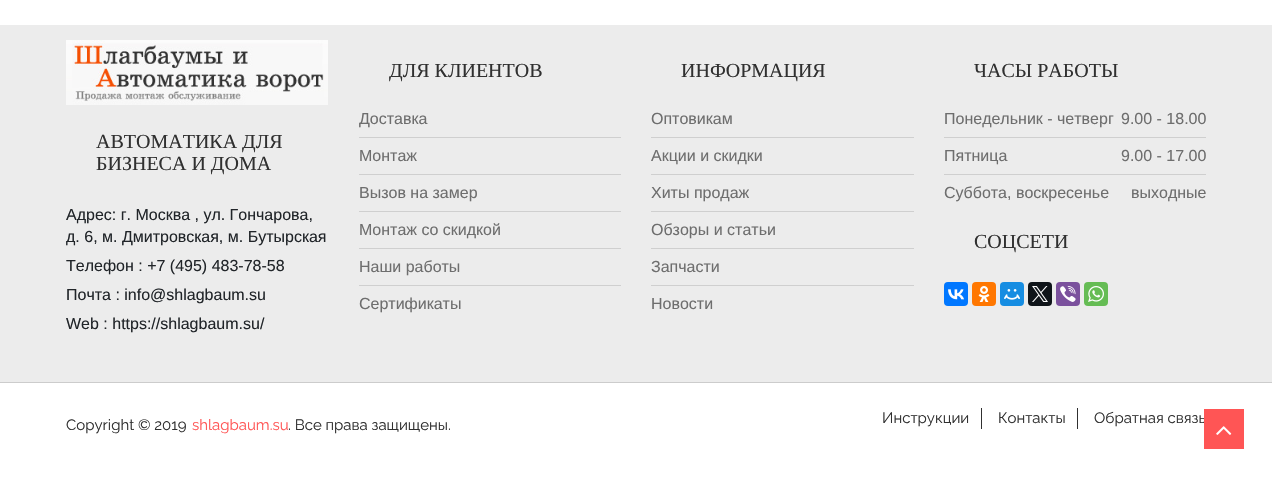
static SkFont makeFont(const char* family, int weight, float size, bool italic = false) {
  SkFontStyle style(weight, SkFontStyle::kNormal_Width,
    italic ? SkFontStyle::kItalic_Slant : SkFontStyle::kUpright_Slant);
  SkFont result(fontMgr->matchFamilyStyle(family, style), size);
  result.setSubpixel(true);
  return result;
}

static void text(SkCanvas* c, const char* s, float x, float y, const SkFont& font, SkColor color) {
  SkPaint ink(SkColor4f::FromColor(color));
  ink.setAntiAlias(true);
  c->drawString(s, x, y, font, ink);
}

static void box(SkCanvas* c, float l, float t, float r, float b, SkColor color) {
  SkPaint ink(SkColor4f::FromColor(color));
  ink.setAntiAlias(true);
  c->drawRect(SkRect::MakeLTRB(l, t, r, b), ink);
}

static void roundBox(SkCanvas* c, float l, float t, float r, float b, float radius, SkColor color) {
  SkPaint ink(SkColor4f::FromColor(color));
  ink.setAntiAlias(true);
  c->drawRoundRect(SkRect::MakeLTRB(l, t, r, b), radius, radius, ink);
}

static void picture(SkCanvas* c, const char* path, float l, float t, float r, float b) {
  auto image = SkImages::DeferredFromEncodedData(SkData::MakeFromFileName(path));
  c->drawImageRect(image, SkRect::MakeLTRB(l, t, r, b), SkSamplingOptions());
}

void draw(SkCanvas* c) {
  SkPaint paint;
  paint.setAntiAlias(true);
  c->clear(0xffffffff);
  box(c, 0, 25, 1272, 382, 0xffececec);
  box(c, 0, 382, 1272, 383, 0xffcccccc);
  picture(c, "img_01.png", 66, 40, 328, 105);
  SkFont face1 = makeFont("Liberation Serif", 400, 20);
  text(c, "АВТОМАТИКА ДЛЯ", 96, 148, face1, 0xff303030);
  text(c, "БИЗНЕСА И ДОМА", 96, 170, face1, 0xff303030);
  SkFont face2 = makeFont("Liberation Sans", 400, 16);
  text(c, "Адрес: г. Москва , ул. Гончарова,", 66, 220, face2, 0xff212529);
  text(c, "д. 6, м. Дмитровская, м. Бутырская", 66, 242, face2, 0xff212529);
  text(c, "Телефон : +7 (495) 483-78-58", 66, 271, face2, 0xff212529);
  text(c, "Почта : info@shlagbaum.su", 66, 300, face2, 0xff212529);
  text(c, "Web : https://shlagbaum.su/", 66, 329, face2, 0xff212529);
  text(c, "ДЛЯ КЛИЕНТОВ", 389, 77, face1, 0xff303030);
  box(c, 359, 137, 621, 138, 0xffcfcfcf);
  text(c, "Доставка", 359, 124, face2, 0xff6e6e6e);
  box(c, 359, 174, 621, 175, 0xffcfcfcf);
  text(c, "Монтаж", 359, 161, face2, 0xff6e6e6e);
  box(c, 359, 211, 621, 212, 0xffcfcfcf);
  text(c, "Вызов на замер", 359, 198, face2, 0xff6e6e6e);
  box(c, 359, 248, 621, 249, 0xffcfcfcf);
  text(c, "Монтаж со скидкой", 359, 235, face2, 0xff6e6e6e);
  box(c, 359, 285, 621, 286, 0xffcfcfcf);
  text(c, "Наши работы", 359, 272, face2, 0xff6e6e6e);
  text(c, "Сертификаты", 359, 309, face2, 0xff6e6e6e);
  text(c, "ИНФОРМАЦИЯ", 681, 77, face1, 0xff303030);
  box(c, 651, 137, 914, 138, 0xffcfcfcf);
  text(c, "Оптовикам", 651, 124, face2, 0xff6e6e6e);
  box(c, 651, 174, 914, 175, 0xffcfcfcf);
  text(c, "Акции и скидки", 651, 161, face2, 0xff6e6e6e);
  box(c, 651, 211, 914, 212, 0xffcfcfcf);
  text(c, "Хиты продаж", 651, 198, face2, 0xff6e6e6e);
  box(c, 651, 248, 914, 249, 0xffcfcfcf);
  text(c, "Обзоры и статьи", 651, 235, face2, 0xff6e6e6e);
  box(c, 651, 285, 914, 286, 0xffcfcfcf);
  text(c, "Запчасти", 651, 272, face2, 0xff6e6e6e);
  text(c, "Новости", 651, 309, face2, 0xff6e6e6e);
  text(c, "ЧАСЫ РАБОТЫ", 974, 77, face1, 0xff303030);
  box(c, 944, 137, 1206, 138, 0xffcfcfcf);
  text(c, "Понедельник - четверг", 944, 124, face2, 0xff6e6e6e);
  text(c, "9.00 - 18.00", 1121, 124, face2, 0xff6e6e6e);
  box(c, 944, 174, 1206, 175, 0xffcfcfcf);
  text(c, "Пятница", 944, 161, face2, 0xff6e6e6e);
  text(c, "9.00 - 17.00", 1121, 161, face2, 0xff6e6e6e);
  text(c, "Суббота, воскресенье", 944, 198, face2, 0xff6e6e6e);
  text(c, "выходные", 1131, 198, face2, 0xff6e6e6e);
  text(c, "СОЦСЕТИ", 974, 248, face1, 0xff303030);
  roundBox(c, 944, 282, 968, 306, 4, 0xff0077ff);
  picture(c, "img_02.png", 948, 289, 964, 300);
  roundBox(c, 972, 282, 996, 306, 4, 0xffff7700);
  picture(c, "img_03.png", 978, 286, 990, 302);
  roundBox(c, 1000, 282, 1024, 306, 4, 0xff168de2);
  picture(c, "img_04.png", 1004, 289, 1020, 300);
  roundBox(c, 1028, 282, 1052, 306, 4, 0xff0f1419);
  picture(c, "img_05.png", 1032, 286, 1048, 302);
  roundBox(c, 1056, 282, 1080, 306, 4, 0xff7b519d);
  picture(c, "img_06.png", 1060, 286, 1076, 302);
  roundBox(c, 1084, 282, 1108, 306, 4, 0xff65bc54);
  picture(c, "img_07.png", 1088, 286, 1104, 302);
  SkFont face3 = makeFont("Raleway", 400, 15);
  text(c, "Copyright © 2019", 66, 430, face3, 0xff303030);
  text(c, "shlagbaum.su", 192, 430, face3, 0xffff5555);
  text(c, ". Все права защищены.", 288, 430, face3, 0xff303030);
  box(c, 981, 408, 982, 429, 0xff303030);
  text(c, "Инструкции", 882, 423, face3, 0xff303030);
  box(c, 1077, 408, 1078, 429, 0xff303030);
  text(c, "Контакты", 998, 423, face3, 0xff303030);
  text(c, "Обратная связь", 1094, 423, face3, 0xff303030);
  box(c, 1204, 409, 1244, 449, 0xffff5555);
  picture(c, "img_08.png", 1216, 426, 1232, 435);
}
